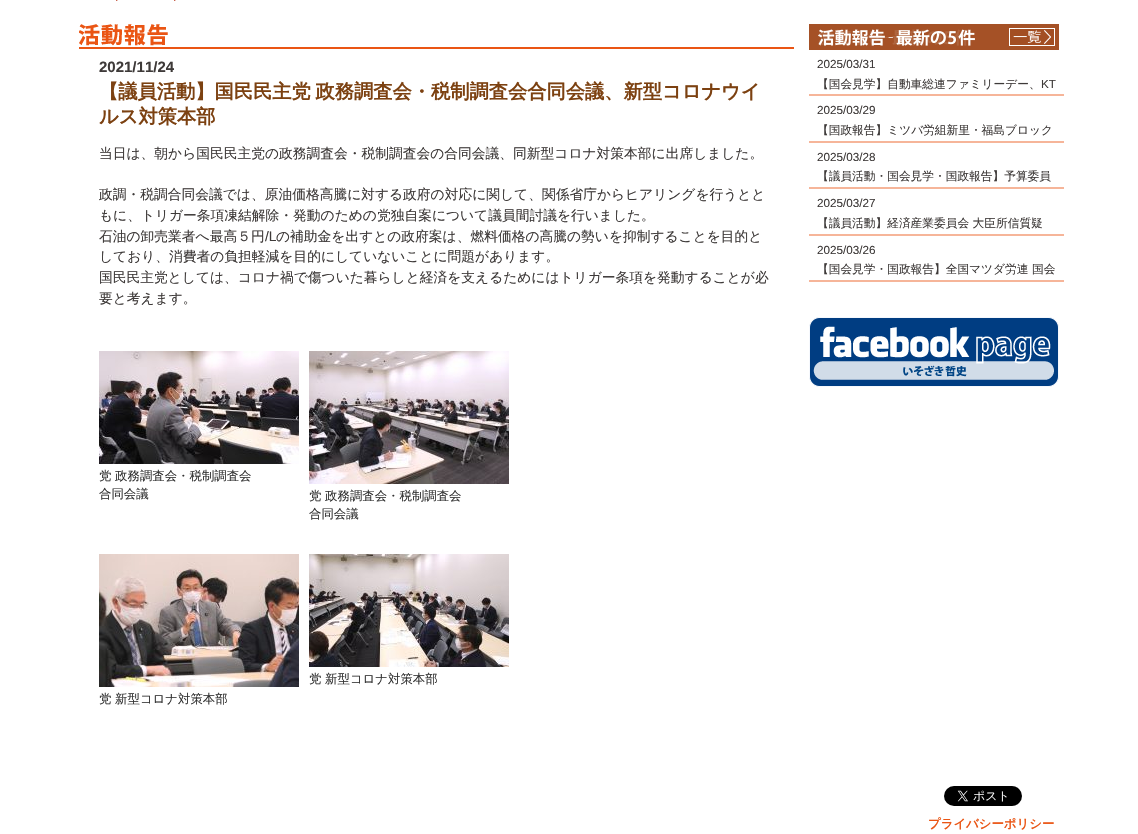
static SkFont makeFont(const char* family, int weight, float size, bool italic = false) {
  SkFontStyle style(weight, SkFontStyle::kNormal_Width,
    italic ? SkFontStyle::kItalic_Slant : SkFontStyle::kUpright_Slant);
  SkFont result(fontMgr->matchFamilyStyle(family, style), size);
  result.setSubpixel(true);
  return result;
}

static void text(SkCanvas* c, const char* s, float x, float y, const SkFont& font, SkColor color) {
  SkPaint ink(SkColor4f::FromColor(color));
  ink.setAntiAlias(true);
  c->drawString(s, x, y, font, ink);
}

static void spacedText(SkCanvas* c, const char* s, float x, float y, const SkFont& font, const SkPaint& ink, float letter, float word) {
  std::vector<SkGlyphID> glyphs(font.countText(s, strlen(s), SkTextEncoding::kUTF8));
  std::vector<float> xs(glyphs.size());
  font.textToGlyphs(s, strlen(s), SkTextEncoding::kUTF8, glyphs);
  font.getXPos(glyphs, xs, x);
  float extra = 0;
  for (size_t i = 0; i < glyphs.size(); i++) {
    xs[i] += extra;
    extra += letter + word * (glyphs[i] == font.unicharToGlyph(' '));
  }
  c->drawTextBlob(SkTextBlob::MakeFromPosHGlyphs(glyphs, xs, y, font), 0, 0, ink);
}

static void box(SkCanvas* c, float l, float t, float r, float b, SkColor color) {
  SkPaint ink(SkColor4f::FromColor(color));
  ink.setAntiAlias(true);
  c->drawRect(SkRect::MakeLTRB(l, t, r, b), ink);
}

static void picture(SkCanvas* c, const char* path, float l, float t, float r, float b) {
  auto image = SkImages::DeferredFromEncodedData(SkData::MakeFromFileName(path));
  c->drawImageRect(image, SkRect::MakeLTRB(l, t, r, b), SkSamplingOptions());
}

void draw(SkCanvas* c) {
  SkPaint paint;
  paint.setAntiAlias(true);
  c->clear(0xffffffff);
  picture(c, "img_01.png", 116, 0, 118, 1);
  picture(c, "img_01.png", 174, 0, 176, 1);
  box(c, 79, 47, 794, 49, 0xffea5514);
  picture(c, "img_02.png", 79, 24, 168, 46);
  SkFont face1 = makeFont("Liberation Sans", 700, 15);
  text(c, "2021/11/24", 99, 72, face1, 0xff3e3a39);
  SkFont face2 = makeFont("WenQuanYi Zen Hei", 700, 19.25f);
  paint.setColor(0xff7c4111);
  spacedText(c, "【議員活動】国民民主党 政務調査会・税制調査会合同会議、新型コロナウイ", 99, 98, face2, paint, 0, -1);
  text(c, "ルス対策本部", 99, 123, face2, 0xff7c4111);
  SkFont face3 = makeFont("WenQuanYi Zen Hei", 500, 13.75f);
  text(c, "当日は、朝から国民民主党の政務調査会・税制調査会の合同会議、同新型コロナ対策本部に出席しました。", 99, 158, face3, 0xff3e3a39);
  text(c, "政調・税調合同会議では、原油価格高騰に対する政府の対応に関して、関係省庁からヒアリングを行うとと", 99, 199, face3, 0xff3e3a39);
  text(c, "もに、トリガー条項凍結解除・発動のための党独自案について議員間討議を行いました。", 99, 220, face3, 0xff3e3a39);
  text(c, "石油の卸売業者へ最高５円", 99, 241, face3, 0xff3e3a39);
  SkFont face4 = makeFont("Liberation Sans", 400, 13.75f);
  text(c, "/L", 265, 241, face4, 0xff3e3a39);
  text(c, "の補助金を出すとの政府案は、燃料価格の高騰の勢いを抑制することを目的と", 276, 241, face3, 0xff3e3a39);
  text(c, "しており、消費者の負担軽減を目的にしていないことに問題があります。", 99, 261, face3, 0xff3e3a39);
  text(c, "国民民主党としては、コロナ禍で傷ついた暮らしと経済を支えるためにはトリガー条項を発動することが必", 99, 282, face3, 0xff3e3a39);
  text(c, "要と考えます。", 99, 303, face3, 0xff3e3a39);
  picture(c, "img_03.png", 99, 351, 299, 464);
  SkFont face5 = makeFont("WenQuanYi Zen Hei", 500, 12.4f);
  text(c, "党 政務調査会・税制調査会", 99, 480, face5, 0xff333333);
  text(c, "合同会議", 99, 498, face5, 0xff333333);
  picture(c, "img_04.png", 309, 351, 509, 484);
  text(c, "党 政務調査会・税制調査会", 309, 500, face5, 0xff333333);
  text(c, "合同会議", 309, 518, face5, 0xff333333);
  picture(c, "img_05.png", 309, 554, 509, 667);
  text(c, "党 新型コロナ対策本部", 309, 683, face5, 0xff333333);
  picture(c, "img_06.png", 99, 554, 299, 687);
  text(c, "党 新型コロナ対策本部", 99, 703, face5, 0xff333333);
  picture(c, "img_07.png", 809, 24, 1059, 50);
  picture(c, "img_08.png", 1009, 28, 1055, 46);
  box(c, 809, 94, 1064, 96, 0xfff6b599);
  SkFont face6 = makeFont("Liberation Sans", 400, 11.7f);
  text(c, "2025/03/31", 817, 68, face6, 0xff3e3a39);
  SkFont face7 = makeFont("WenQuanYi Zen Hei", 500, 11.7f);
  text(c, "【国会見学】自動車総連ファミリーデー、", 817, 88, face7, 0xff3e3a39);
  text(c, "KT", 1041, 88, face6, 0xff3e3a39);
  box(c, 809, 141, 1064, 143, 0xfff6b599);
  text(c, "2025/03/29", 817, 114, face6, 0xff3e3a39);
  text(c, "【国政報告】ミツバ労組新里・福島ブロック", 817, 134, face7, 0xff3e3a39);
  box(c, 809, 187, 1064, 189, 0xfff6b599);
  text(c, "2025/03/28", 817, 161, face6, 0xff3e3a39);
  text(c, "【議員活動・国会見学・国政報告】予算委員", 817, 180, face7, 0xff3e3a39);
  box(c, 809, 234, 1064, 236, 0xfff6b599);
  text(c, "2025/03/27", 817, 207, face6, 0xff3e3a39);
  text(c, "【議員活動】経済産業委員会 大臣所信質疑", 817, 227, face7, 0xff3e3a39);
  box(c, 809, 280, 1064, 282, 0xfff6b599);
  text(c, "2025/03/26", 817, 254, face6, 0xff3e3a39);
  text(c, "【国会見学・国政報告】全国マツダ労連 国会", 817, 273, face7, 0xff3e3a39);
  picture(c, "img_09.png", 809, 317, 1059, 387);
  picture(c, "img_10.png", 944, 786, 1022, 806);
  SkFont face8 = makeFont("WenQuanYi Zen Hei", 700, 12.4f);
  text(c, "プライバシーポリシー", 928, 828, face8, 0xffea5514);
}
